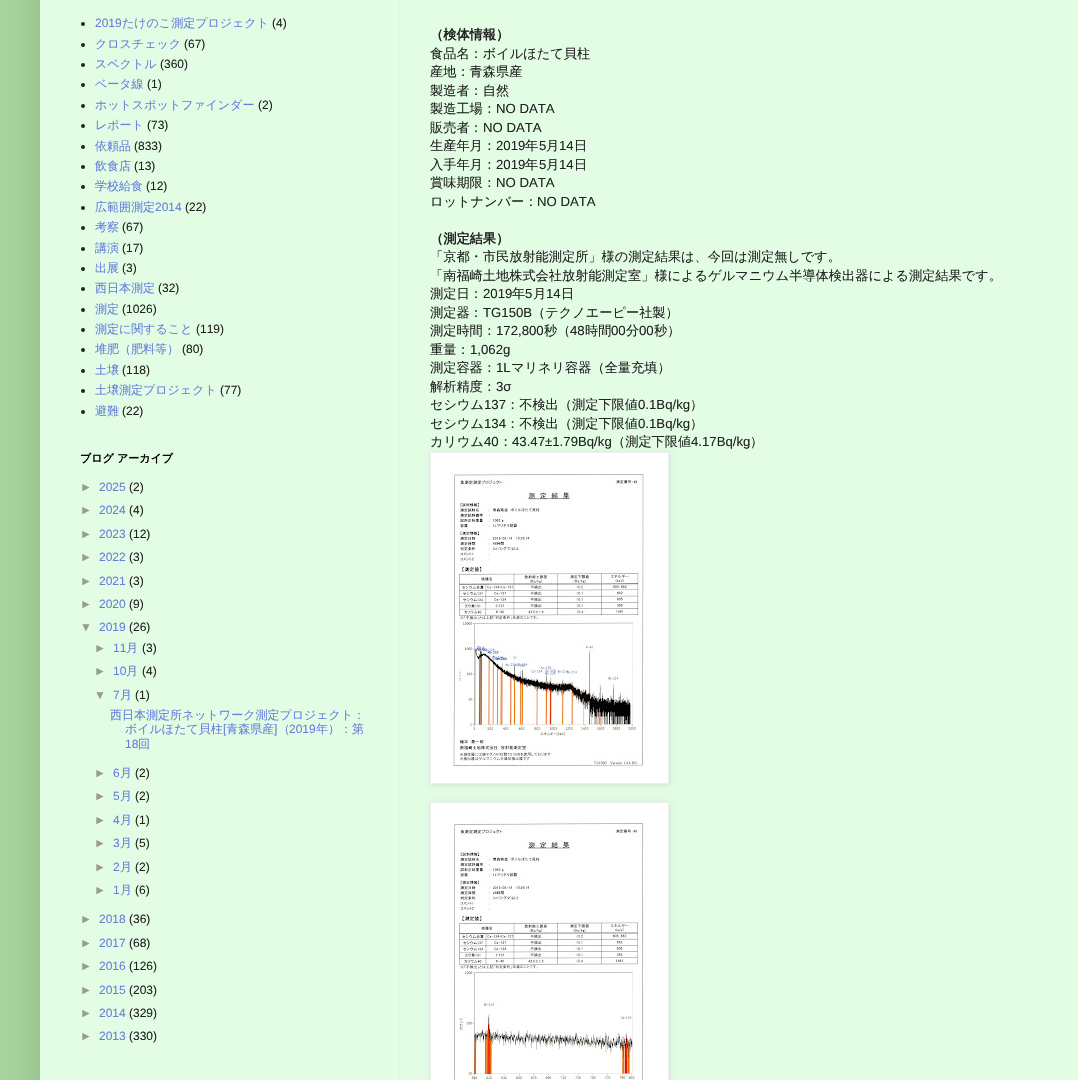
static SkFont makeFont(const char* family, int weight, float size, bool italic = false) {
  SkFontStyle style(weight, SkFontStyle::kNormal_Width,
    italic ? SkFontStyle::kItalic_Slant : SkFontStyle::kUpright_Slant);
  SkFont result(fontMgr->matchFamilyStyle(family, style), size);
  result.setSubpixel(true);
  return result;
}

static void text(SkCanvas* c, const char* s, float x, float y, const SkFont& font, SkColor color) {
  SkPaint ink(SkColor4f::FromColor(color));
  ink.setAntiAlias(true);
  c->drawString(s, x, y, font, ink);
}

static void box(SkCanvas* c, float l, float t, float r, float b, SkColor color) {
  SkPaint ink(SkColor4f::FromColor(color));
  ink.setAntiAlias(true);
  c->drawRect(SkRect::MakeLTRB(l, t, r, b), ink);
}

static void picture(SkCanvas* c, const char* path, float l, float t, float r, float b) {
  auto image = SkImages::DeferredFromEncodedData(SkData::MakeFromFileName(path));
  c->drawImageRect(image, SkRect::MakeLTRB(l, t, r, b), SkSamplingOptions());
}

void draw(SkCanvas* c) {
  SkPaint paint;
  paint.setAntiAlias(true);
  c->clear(0xffa8d59c);
  paint.setColor(0x26000000);
  paint.setMaskFilter(SkMaskFilter::MakeBlur(kNormal_SkBlurStyle, 20));
  c->drawRect(SkRect::MakeLTRB(40, -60, 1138, 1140), paint);
  paint.setMaskFilter(nullptr);
  box(c, 40, 0, 1078, 1080, 0xffe3fde5);
  box(c, 399, 0, 400, 1080, 0xffeeeeee);
  paint.setColor(0xff222222);
  c->drawCircle(83, 24, 2, paint);
  SkFont face1 = makeFont("Liberation Sans", 400, 12);
  text(c, "2019", 95, 27, face1, 0xff667fdd);
  SkFont face2 = makeFont("WenQuanYi Zen Hei", 500, 12);
  text(c, "たけのこ測定プロジェクト", 122, 27, face2, 0xff667fdd);
  text(c, "(4)", 272, 27, face1, 0xff222222);
  c->drawCircle(83, 45, 2, paint);
  text(c, "クロスチェック", 95, 48, face2, 0xff667fdd);
  text(c, "(67)", 184, 48, face1, 0xff222222);
  c->drawCircle(83, 65, 2, paint);
  text(c, "スペクトル", 95, 68, face2, 0xff667fdd);
  text(c, "(360)", 160, 68, face1, 0xff222222);
  c->drawCircle(83, 85, 2, paint);
  text(c, "ベータ線", 95, 88, face2, 0xff667fdd);
  text(c, "(1)", 147, 88, face1, 0xff222222);
  c->drawCircle(83, 106, 2, paint);
  text(c, "ホットスポットファインダー", 95, 109, face2, 0xff667fdd);
  text(c, "(2)", 258, 109, face1, 0xff222222);
  c->drawCircle(83, 126, 2, paint);
  text(c, "レポート", 95, 129, face2, 0xff667fdd);
  text(c, "(73)", 147, 129, face1, 0xff222222);
  c->drawCircle(83, 147, 2, paint);
  text(c, "依頼品", 95, 150, face2, 0xff667fdd);
  text(c, "(833)", 134, 150, face1, 0xff222222);
  c->drawCircle(83, 167, 2, paint);
  text(c, "飲食店", 95, 170, face2, 0xff667fdd);
  text(c, "(13)", 134, 170, face1, 0xff222222);
  c->drawCircle(83, 187, 2, paint);
  text(c, "学校給食", 95, 190, face2, 0xff667fdd);
  text(c, "(12)", 146, 190, face1, 0xff222222);
  c->drawCircle(83, 208, 2, paint);
  text(c, "広範囲測定", 95, 211, face2, 0xff667fdd);
  text(c, "2014", 155, 211, face1, 0xff667fdd);
  text(c, "(22)", 185, 211, face1, 0xff222222);
  c->drawCircle(83, 228, 2, paint);
  text(c, "考察", 95, 231, face2, 0xff667fdd);
  text(c, "(67)", 122, 231, face1, 0xff222222);
  c->drawCircle(83, 249, 2, paint);
  text(c, "講演", 95, 252, face2, 0xff667fdd);
  text(c, "(17)", 122, 252, face1, 0xff222222);
  c->drawCircle(83, 269, 2, paint);
  text(c, "出展", 95, 272, face2, 0xff667fdd);
  text(c, "(3)", 122, 272, face1, 0xff222222);
  c->drawCircle(83, 289, 2, paint);
  text(c, "西日本測定", 95, 292, face2, 0xff667fdd);
  text(c, "(32)", 158, 292, face1, 0xff222222);
  c->drawCircle(83, 310, 2, paint);
  text(c, "測定", 95, 313, face2, 0xff667fdd);
  text(c, "(1026)", 122, 313, face1, 0xff222222);
  c->drawCircle(83, 330, 2, paint);
  text(c, "測定に関すること", 95, 333, face2, 0xff667fdd);
  text(c, "(119)", 196, 333, face1, 0xff222222);
  c->drawCircle(83, 350, 2, paint);
  text(c, "堆肥（肥料等）", 95, 353, face2, 0xff667fdd);
  text(c, "(80)", 182, 353, face1, 0xff222222);
  c->drawCircle(83, 371, 2, paint);
  text(c, "土壌", 95, 374, face2, 0xff667fdd);
  text(c, "(118)", 122, 374, face1, 0xff222222);
  c->drawCircle(83, 391, 2, paint);
  text(c, "土壌測定プロジェクト", 95, 394, face2, 0xff667fdd);
  text(c, "(77)", 220, 394, face1, 0xff222222);
  c->drawCircle(83, 412, 2, paint);
  text(c, "避難", 95, 415, face2, 0xff667fdd);
  text(c, "(22)", 122, 415, face1, 0xff222222);
  SkFont face3 = makeFont("WenQuanYi Zen Hei", 700, 11);
  text(c, "ブログ アーカイブ", 80, 462, face3, 0xff000000);
  text(c, "►", 80, 491, face1, 0xff999999);
  text(c, "2025", 99, 491, face1, 0xff667fdd);
  text(c, "(2)", 129, 491, face1, 0xff222222);
  text(c, "►", 80, 514, face1, 0xff999999);
  text(c, "2024", 99, 514, face1, 0xff667fdd);
  text(c, "(4)", 129, 514, face1, 0xff222222);
  text(c, "►", 80, 538, face1, 0xff999999);
  text(c, "2023", 99, 538, face1, 0xff667fdd);
  text(c, "(12)", 129, 538, face1, 0xff222222);
  text(c, "►", 80, 561, face1, 0xff999999);
  text(c, "2022", 99, 561, face1, 0xff667fdd);
  text(c, "(3)", 129, 561, face1, 0xff222222);
  text(c, "►", 80, 585, face1, 0xff999999);
  text(c, "2021", 99, 585, face1, 0xff667fdd);
  text(c, "(3)", 129, 585, face1, 0xff222222);
  text(c, "►", 80, 608, face1, 0xff999999);
  text(c, "2020", 99, 608, face1, 0xff667fdd);
  text(c, "(9)", 129, 608, face1, 0xff222222);
  text(c, "▼", 80, 631, face1, 0xff999999);
  text(c, "2019", 99, 631, face1, 0xff667fdd);
  text(c, "(26)", 129, 631, face1, 0xff222222);
  text(c, "►", 94, 652, face1, 0xff999999);
  text(c, "11", 113, 652, face1, 0xff667fdd);
  text(c, "月", 126, 652, face2, 0xff667fdd);
  text(c, "(3)", 142, 652, face1, 0xff222222);
  text(c, "►", 94, 675, face1, 0xff999999);
  text(c, "10", 113, 675, face1, 0xff667fdd);
  text(c, "月", 126, 675, face2, 0xff667fdd);
  text(c, "(4)", 142, 675, face1, 0xff222222);
  text(c, "▼", 94, 699, face1, 0xff999999);
  text(c, "7", 113, 699, face1, 0xff667fdd);
  text(c, "月", 120, 699, face2, 0xff667fdd);
  text(c, "(1)", 135, 699, face1, 0xff222222);
  text(c, "西日本測定所ネットワーク測定プロジェクト：", 110, 719, face2, 0xff667fdd);
  text(c, "ボイルほたて貝柱 青森県産 （", 125, 733, face2, 0xff667fdd);
  text(c, "年）：第", 316, 733, face2, 0xff667fdd);
  text(c, "[", 223, 733, face1, 0xff667fdd);
  text(c, "]", 274, 733, face1, 0xff667fdd);
  text(c, "2019", 289, 733, face1, 0xff667fdd);
  text(c, "18", 125, 748, face1, 0xff667fdd);
  text(c, "回", 138, 748, face2, 0xff667fdd);
  text(c, "►", 94, 777, face1, 0xff999999);
  text(c, "6", 113, 777, face1, 0xff667fdd);
  text(c, "月", 120, 777, face2, 0xff667fdd);
  text(c, "(2)", 135, 777, face1, 0xff222222);
  text(c, "►", 94, 800, face1, 0xff999999);
  text(c, "5", 113, 800, face1, 0xff667fdd);
  text(c, "月", 120, 800, face2, 0xff667fdd);
  text(c, "(2)", 135, 800, face1, 0xff222222);
  text(c, "►", 94, 824, face1, 0xff999999);
  text(c, "4", 113, 824, face1, 0xff667fdd);
  text(c, "月", 120, 824, face2, 0xff667fdd);
  text(c, "(1)", 135, 824, face1, 0xff222222);
  text(c, "►", 94, 847, face1, 0xff999999);
  text(c, "3", 113, 847, face1, 0xff667fdd);
  text(c, "月", 120, 847, face2, 0xff667fdd);
  text(c, "(5)", 135, 847, face1, 0xff222222);
  text(c, "►", 94, 871, face1, 0xff999999);
  text(c, "2", 113, 871, face1, 0xff667fdd);
  text(c, "月", 120, 871, face2, 0xff667fdd);
  text(c, "(2)", 135, 871, face1, 0xff222222);
  text(c, "►", 94, 894, face1, 0xff999999);
  text(c, "1", 113, 894, face1, 0xff667fdd);
  text(c, "月", 120, 894, face2, 0xff667fdd);
  text(c, "(6)", 135, 894, face1, 0xff222222);
  text(c, "►", 80, 923, face1, 0xff999999);
  text(c, "2018", 99, 923, face1, 0xff667fdd);
  text(c, "(36)", 129, 923, face1, 0xff222222);
  text(c, "►", 80, 947, face1, 0xff999999);
  text(c, "2017", 99, 947, face1, 0xff667fdd);
  text(c, "(68)", 129, 947, face1, 0xff222222);
  text(c, "►", 80, 970, face1, 0xff999999);
  text(c, "2016", 99, 970, face1, 0xff667fdd);
  text(c, "(126)", 129, 970, face1, 0xff222222);
  text(c, "►", 80, 994, face1, 0xff999999);
  text(c, "2015", 99, 994, face1, 0xff667fdd);
  text(c, "(203)", 129, 994, face1, 0xff222222);
  text(c, "►", 80, 1017, face1, 0xff999999);
  text(c, "2014", 99, 1017, face1, 0xff667fdd);
  text(c, "(329)", 129, 1017, face1, 0xff222222);
  text(c, "►", 80, 1040, face1, 0xff999999);
  text(c, "2013", 99, 1040, face1, 0xff667fdd);
  text(c, "(330)", 129, 1040, face1, 0xff222222);
  SkFont face4 = makeFont("WenQuanYi Zen Hei", 700, 13.2f);
  text(c, "（検体情報）", 430, 39, face4, 0xff222222);
  SkFont face5 = makeFont("WenQuanYi Zen Hei", 500, 13.2f);
  text(c, "食品名：ボイルほたて貝柱", 430, 58, face5, 0xff222222);
  text(c, "産地：青森県産", 430, 76, face5, 0xff222222);
  text(c, "製造者：自然", 430, 95, face5, 0xff222222);
  text(c, "製造工場：", 430, 113, face5, 0xff222222);
  SkFont face6 = makeFont("Liberation Sans", 400, 13.2f);
  text(c, "NO DATA", 496, 113, face6, 0xff222222);
  text(c, "販売者：", 430, 132, face5, 0xff222222);
  text(c, "NO DATA", 483, 132, face6, 0xff222222);
  text(c, "生産年月：", 430, 150, face5, 0xff222222);
  text(c, "2019", 496, 150, face6, 0xff222222);
  text(c, "年", 525, 150, face5, 0xff222222);
  text(c, "5", 539, 150, face6, 0xff222222);
  text(c, "月", 546, 150, face5, 0xff222222);
  text(c, "14", 559, 150, face6, 0xff222222);
  text(c, "日", 574, 150, face5, 0xff222222);
  text(c, "入手年月：", 430, 169, face5, 0xff222222);
  text(c, "2019", 496, 169, face6, 0xff222222);
  text(c, "年", 525, 169, face5, 0xff222222);
  text(c, "5", 539, 169, face6, 0xff222222);
  text(c, "月", 546, 169, face5, 0xff222222);
  text(c, "14", 559, 169, face6, 0xff222222);
  text(c, "日", 574, 169, face5, 0xff222222);
  text(c, "賞味期限：", 430, 187, face5, 0xff222222);
  text(c, "NO DATA", 496, 187, face6, 0xff222222);
  text(c, "ロットナンバー：", 430, 206, face5, 0xff222222);
  text(c, "NO DATA", 537, 206, face6, 0xff222222);
  text(c, "（測定結果）", 430, 243, face4, 0xff222222);
  text(c, "「京都・市民放射能測定所」様の測定結果は、今回は測定無しです。", 430, 261, face5, 0xff222222);
  text(c, "「南福崎土地株式会社放射能測定室」様によるゲルマニウム半導体検出器による測定結果です。", 430, 280, face5, 0xff222222);
  text(c, "測定日：", 430, 298, face5, 0xff222222);
  text(c, "2019", 483, 298, face6, 0xff222222);
  text(c, "年", 512, 298, face5, 0xff222222);
  text(c, "5", 525, 298, face6, 0xff222222);
  text(c, "月", 533, 298, face5, 0xff222222);
  text(c, "14", 546, 298, face6, 0xff222222);
  text(c, "日", 561, 298, face5, 0xff222222);
  text(c, "測定器：", 430, 317, face5, 0xff222222);
  text(c, "TG150B", 483, 317, face6, 0xff222222);
  text(c, "（テクノエーピー社製）", 532, 317, face5, 0xff222222);
  text(c, "測定時間：", 430, 335, face5, 0xff222222);
  text(c, "172,800", 496, 335, face6, 0xff222222);
  text(c, "秒（", 544, 335, face5, 0xff222222);
  text(c, "48", 570, 335, face6, 0xff222222);
  text(c, "時間", 585, 335, face5, 0xff222222);
  text(c, "00", 611, 335, face6, 0xff222222);
  text(c, "分", 626, 335, face5, 0xff222222);
  text(c, "00", 639, 335, face6, 0xff222222);
  text(c, "秒）", 654, 335, face5, 0xff222222);
  text(c, "重量：", 430, 354, face5, 0xff222222);
  text(c, "1,062g", 470, 354, face6, 0xff222222);
  text(c, "測定容器：", 430, 372, face5, 0xff222222);
  text(c, "1L", 496, 372, face6, 0xff222222);
  text(c, "マリネリ容器（全量充填）", 511, 372, face5, 0xff222222);
  text(c, "解析精度：", 430, 391, face5, 0xff222222);
  text(c, "3σ", 496, 391, face6, 0xff222222);
  text(c, "セシウム", 430, 409, face5, 0xff222222);
  text(c, "137", 484, 409, face6, 0xff222222);
  text(c, "：不検出（測定下限値", 506, 409, face5, 0xff222222);
  text(c, "0.1Bq/kg", 638, 409, face6, 0xff222222);
  text(c, "）", 690, 409, face5, 0xff222222);
  text(c, "セシウム", 430, 428, face5, 0xff222222);
  text(c, "134", 484, 428, face6, 0xff222222);
  text(c, "：不検出（測定下限値", 506, 428, face5, 0xff222222);
  text(c, "0.1Bq/kg", 638, 428, face6, 0xff222222);
  text(c, "）", 690, 428, face5, 0xff222222);
  text(c, "カリウム", 430, 446, face5, 0xff222222);
  text(c, "40", 484, 446, face6, 0xff222222);
  text(c, "：", 499, 446, face5, 0xff222222);
  text(c, "43.47±1.79Bq/kg", 512, 446, face6, 0xff222222);
  text(c, "（測定下限値", 612, 446, face5, 0xff222222);
  text(c, "4.17Bq/kg", 691, 446, face6, 0xff222222);
  text(c, "）", 750, 446, face5, 0xff222222);
  paint.setColor(0x1a000000);
  paint.setMaskFilter(SkMaskFilter::MakeBlur(kNormal_SkBlurStyle, 2.5f));
  c->drawRect(SkRect::MakeLTRB(431, 453, 670, 785), paint);
  paint.setMaskFilter(nullptr);
  paint.setColor(0xffffffff);
  c->drawRect(SkRect::MakeLTRB(430.5f, 452.5f, 668.5f, 783.5f), paint);
  paint.setStyle(SkPaint::kStroke_Style);
  paint.setStrokeWidth(1);
  paint.setColor(0xffeeeeee);
  c->drawRect(SkRect::MakeLTRB(430.5f, 452.5f, 668.5f, 783.5f), paint);
  picture(c, "img_01.png", 452, 474, 644, 770);
  paint.setStyle(SkPaint::kFill_Style);
  paint.setColor(0x1a000000);
  paint.setMaskFilter(SkMaskFilter::MakeBlur(kNormal_SkBlurStyle, 2.5f));
  c->drawRect(SkRect::MakeLTRB(431, 803, 670, 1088), paint);
  paint.setMaskFilter(nullptr);
  paint.setColor(0xffffffff);
  c->drawRect(SkRect::MakeLTRB(430.5f, 802.5f, 668.5f, 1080.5f), paint);
  paint.setStyle(SkPaint::kStroke_Style);
  paint.setColor(0xffeeeeee);
  c->drawRect(SkRect::MakeLTRB(430.5f, 802.5f, 668.5f, 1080.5f), paint);
  picture(c, "img_02.png", 453, 819, 644, 1080);
}
